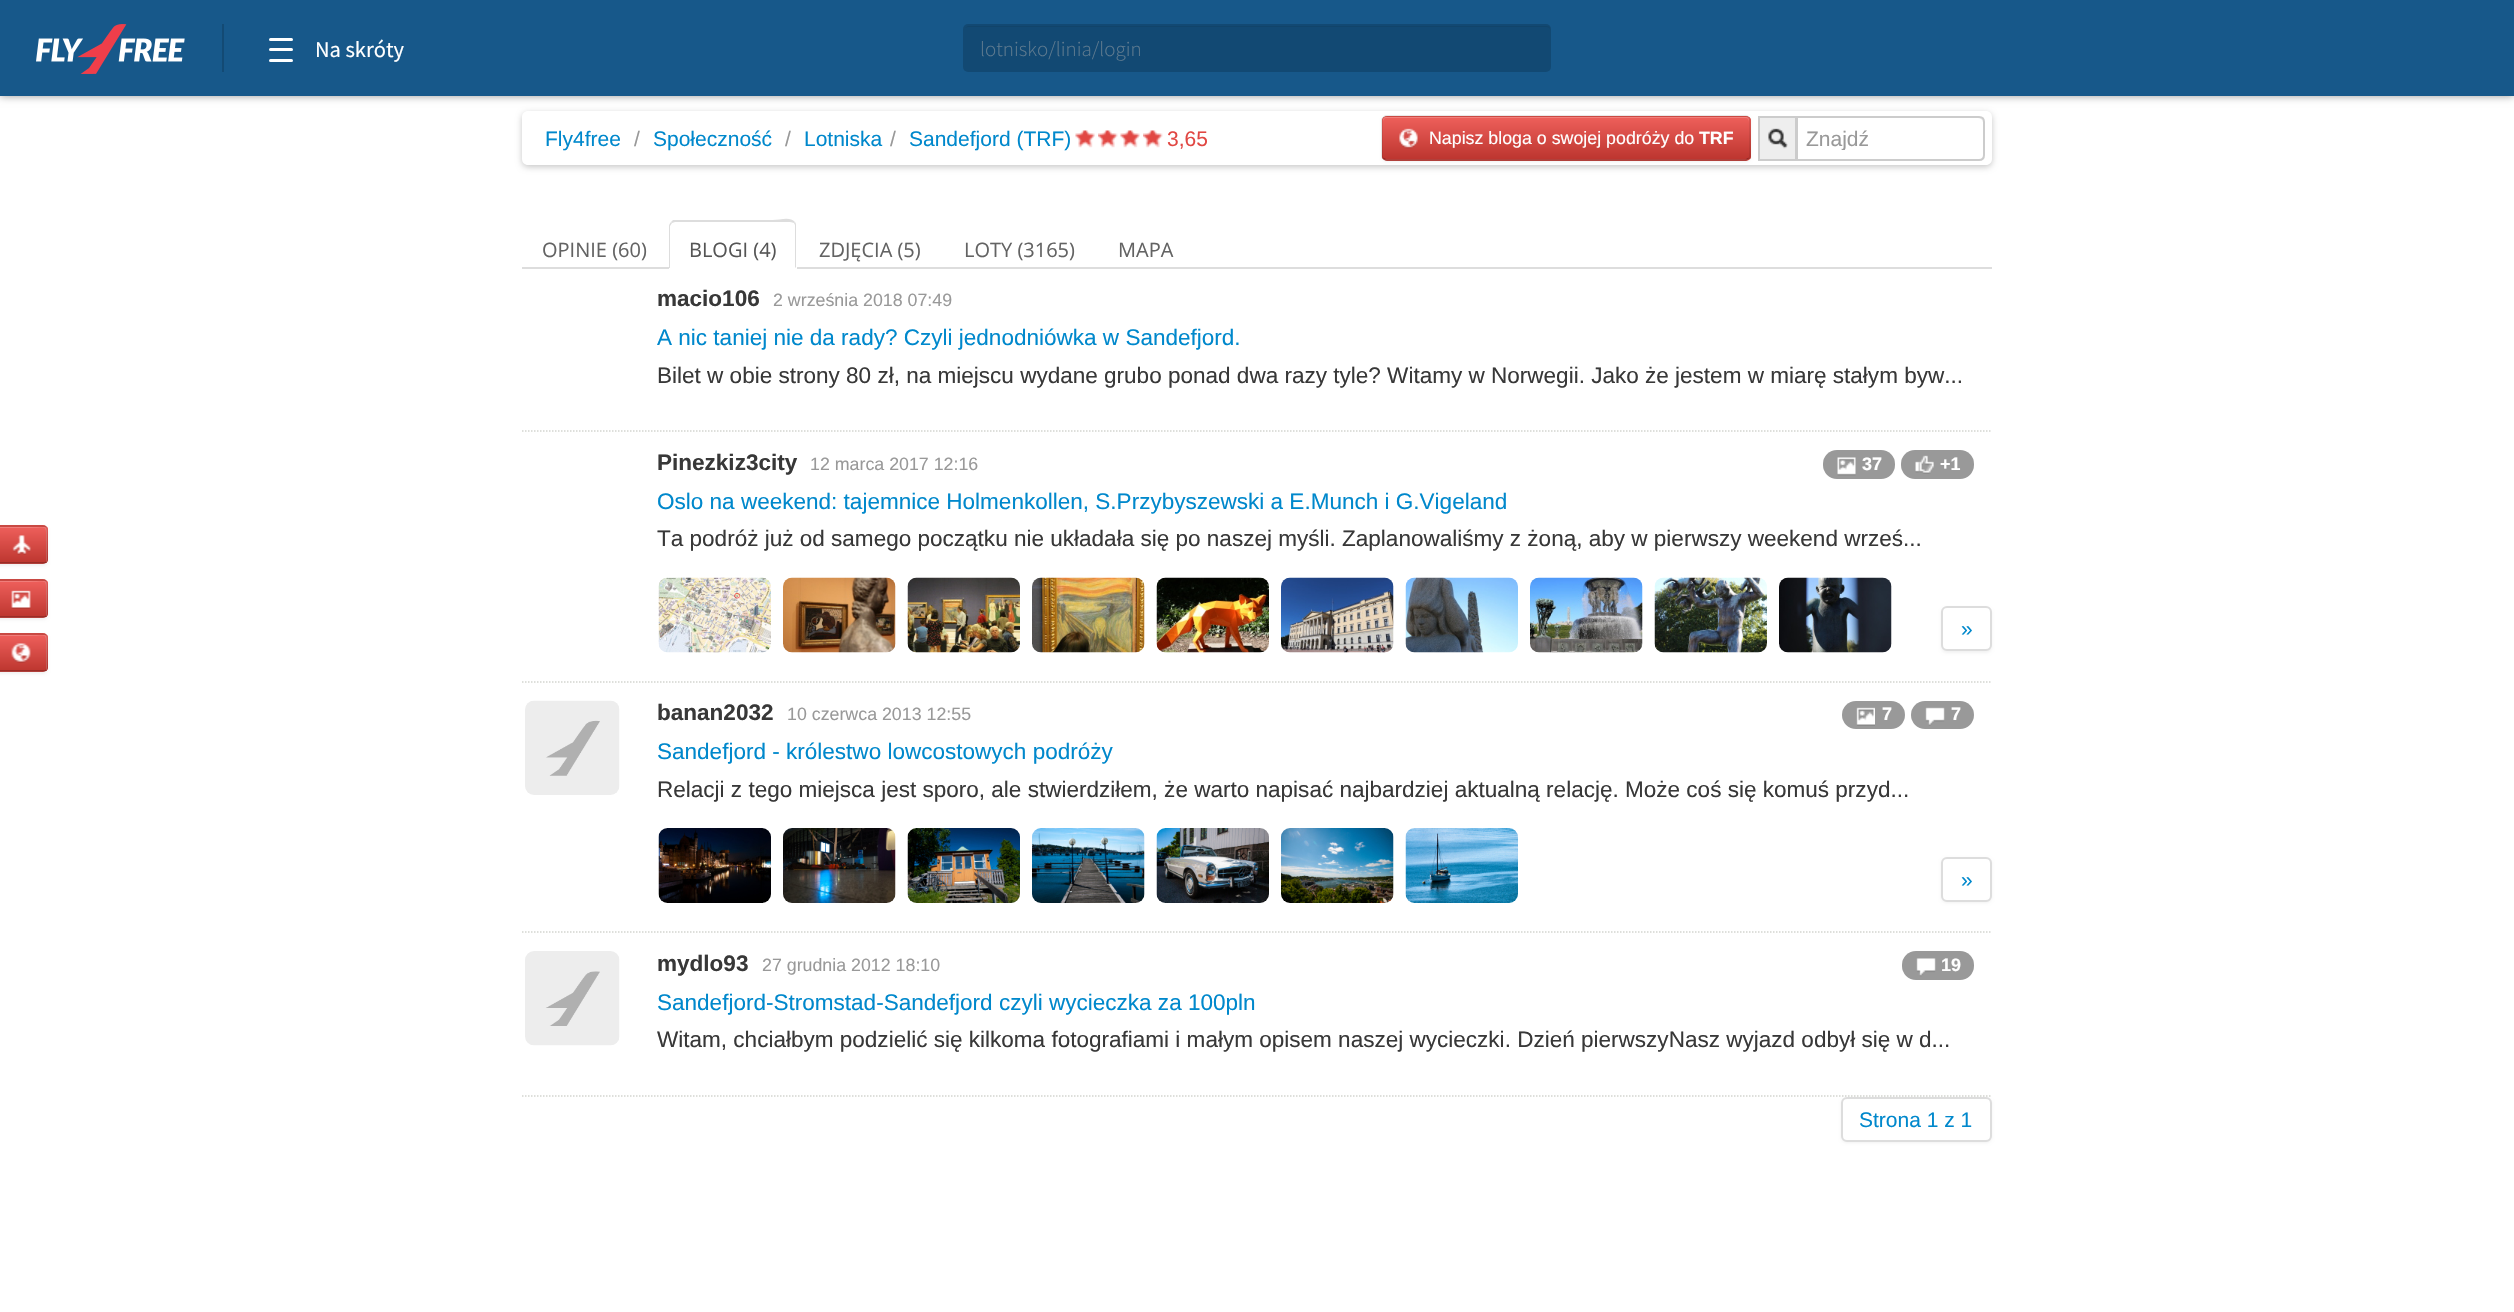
static SkFont makeFont(const char* family, int weight, float size, bool italic = false) {
  SkFontStyle style(weight, SkFontStyle::kNormal_Width,
    italic ? SkFontStyle::kItalic_Slant : SkFontStyle::kUpright_Slant);
  SkFont result(fontMgr->matchFamilyStyle(family, style), size);
  result.setSubpixel(true);
  return result;
}

static void text(SkCanvas* c, const char* s, float x, float y, const SkFont& font, SkColor color) {
  SkPaint ink(SkColor4f::FromColor(color));
  ink.setAntiAlias(true);
  c->drawString(s, x, y, font, ink);
}

static void box(SkCanvas* c, float l, float t, float r, float b, SkColor color) {
  SkPaint ink(SkColor4f::FromColor(color));
  ink.setAntiAlias(true);
  c->drawRect(SkRect::MakeLTRB(l, t, r, b), ink);
}

static void roundBox(SkCanvas* c, float l, float t, float r, float b, float radius, SkColor color) {
  SkPaint ink(SkColor4f::FromColor(color));
  ink.setAntiAlias(true);
  c->drawRoundRect(SkRect::MakeLTRB(l, t, r, b), radius, radius, ink);
}

static void picture(SkCanvas* c, const char* path, float l, float t, float r, float b) {
  auto image = SkImages::DeferredFromEncodedData(SkData::MakeFromFileName(path));
  c->drawImageRect(image, SkRect::MakeLTRB(l, t, r, b), SkSamplingOptions());
}

void draw(SkCanvas* c) {
  SkPaint paint;
  paint.setAntiAlias(true);
  c->clear(0xffffffff);
  paint.setColor(0x66000000);
  paint.setMaskFilter(SkMaskFilter::MakeBlur(kNormal_SkBlurStyle, 4));
  c->drawRect(SkRect::MakeLTRB(0, 0, 2514, 96), paint);
  paint.setMaskFilter(nullptr);
  box(c, 0, 0, 2514, 96, 0xff17588a);
  picture(c, "img_01.png", 36, 24, 185, 74);
  box(c, 222, 24, 224, 72, 0xff134a74);
  roundBox(c, 269, 59, 293, 62, 1.5f, 0xffffffff);
  roundBox(c, 269, 38, 293, 41, 1.5f, 0xffffffff);
  roundBox(c, 269, 48, 293, 51, 1.5f, 0xffffffff);
  SkFont face1 = makeFont("Source Sans Pro", 400, 22.5f);
  text(c, "Na skróty", 315, 57, face1, 0xffffffff);
  roundBox(c, 963, 24, 1551, 72, 5, 0xff124973);
  paint.setColor(0xff11446a);
  c->drawPath(SkPathBuilder().moveTo(968, 27).lineTo(1546, 27).cubicTo(1548, 27, 1550, 28, 1550, 30).lineTo(1550, 29).cubicTo(1550, 27, 1549, 26, 1547, 26).lineTo(968, 26).cubicTo(967, 26, 966, 27, 965, 28).close().detach(), paint);
  SkFont face2 = makeFont("Source Sans Pro", 300, 21);
  text(c, "lotnisko/linia/login", 980, 56, face2, 0xff5e7a8f);
  paint.setColor(0x0d000000);
  paint.setMaskFilter(SkMaskFilter::MakeBlur(kNormal_SkBlurStyle, 1.5f));
  c->drawRoundRect(SkRect::MakeLTRB(-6, 527, 48, 566), 5, 5, paint);
  paint.setMaskFilter(nullptr);
  roundBox(c, -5, 525, 48, 564, 5, 0xffda4f49);
  c->save();
  c->clipPath(SkPathBuilder().moveTo(-1, 525).lineTo(43, 525).cubicTo(46, 525, 48, 527, 48, 530).lineTo(48, 559).cubicTo(48, 562, 46, 564, 43, 564).lineTo(-1, 564).cubicTo(-4, 564, -6, 562, -6, 559).lineTo(-6, 530).cubicTo(-6, 527, -4, 525, -1, 525).close().detach(), true);
  {
    const SkColor colors[] = {0xffee5f5b, 0xffbd362f};
    const float stops[] = {0, 1};
    const SkPoint ends[] = {{21, 527}, {21, 563}};
    paint.setShader(SkGradientShader::MakeLinear(ends, colors, stops, 2, SkTileMode::kClamp));
    paint.setAlpha(255);
  }
  c->drawRect(SkRect::MakeLTRB(0, 527, 48, 563), paint);
  c->restore();
  paint.setShader(nullptr);
  paint.setColor(0x33ffffff);
  c->drawPath(SkPathBuilder().moveTo(-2, 528).lineTo(29, 528).cubicTo(48, 528, 46, 524, 46, 541).lineTo(46, 562).cubicTo(47, 562, 47, 561, 47, 560).lineTo(47, 530).cubicTo(47, 528, 46, 527, 44, 527).lineTo(-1, 527).cubicTo(-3, 527, -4, 528, -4, 530).lineTo(-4, 531).cubicTo(-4, 529, -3, 528, -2, 528).close().detach(), paint);
  paint.setStyle(SkPaint::kStroke_Style);
  paint.setStrokeWidth(1.5f);
  paint.setColor(0x40000000);
  c->drawPath(SkPathBuilder().moveTo(46, 562).cubicTo(45.5f, 563, 44.5f, 563, 43.5f, 563).lineTo(-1.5f, 563).cubicTo(-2.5f, 563, -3.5f, 563, -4, 562).detach(), paint);
  paint.setColor(0x1a000000);
  c->drawPath(SkPathBuilder().moveTo(-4, 562).cubicTo(-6, 560.5f, -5, 556.5f, -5, 554.5f).lineTo(-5, 534.5f).cubicTo(-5, 524.5f, -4.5f, 526, 6, 526).lineTo(36, 526).cubicTo(46.5f, 526, 47, 524.5f, 47, 534.5f).lineTo(47, 554.5f).cubicTo(47, 556.5f, 48, 560.5f, 46, 562).detach(), paint);
  picture(c, "img_02.png", 12, 535, 31, 555);
  paint.setStyle(SkPaint::kFill_Style);
  paint.setColor(0x0d000000);
  paint.setMaskFilter(SkMaskFilter::MakeBlur(kNormal_SkBlurStyle, 1.5f));
  c->drawRoundRect(SkRect::MakeLTRB(-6, 581, 48, 620), 5, 5, paint);
  paint.setMaskFilter(nullptr);
  roundBox(c, -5, 579, 48, 618, 5, 0xffda4f49);
  c->save();
  c->clipPath(SkPathBuilder().moveTo(-1, 579).lineTo(43, 579).cubicTo(46, 579, 48, 581, 48, 584).lineTo(48, 613).cubicTo(48, 616, 46, 618, 43, 618).lineTo(-1, 618).cubicTo(-4, 618, -6, 616, -6, 613).lineTo(-6, 584).cubicTo(-6, 581, -4, 579, -1, 579).close().detach(), true);
  {
    const SkColor colors[] = {0xffee5f5b, 0xffbd362f};
    const float stops[] = {0, 1};
    const SkPoint ends[] = {{21, 581}, {21, 617}};
    paint.setShader(SkGradientShader::MakeLinear(ends, colors, stops, 2, SkTileMode::kClamp));
    paint.setAlpha(255);
  }
  c->drawRect(SkRect::MakeLTRB(0, 581, 48, 617), paint);
  c->restore();
  paint.setShader(nullptr);
  paint.setColor(0x33ffffff);
  c->drawPath(SkPathBuilder().moveTo(-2, 582).lineTo(29, 582).cubicTo(48, 582, 46, 578, 46, 595).lineTo(46, 616).cubicTo(47, 616, 47, 615, 47, 614).lineTo(47, 584).cubicTo(47, 582, 46, 581, 44, 581).lineTo(-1, 581).cubicTo(-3, 581, -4, 582, -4, 584).lineTo(-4, 585).cubicTo(-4, 583, -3, 582, -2, 582).close().detach(), paint);
  paint.setStyle(SkPaint::kStroke_Style);
  paint.setColor(0x40000000);
  c->drawPath(SkPathBuilder().moveTo(46, 616).cubicTo(45.5f, 617, 44.5f, 617, 43.5f, 617).lineTo(-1.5f, 617).cubicTo(-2.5f, 617, -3.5f, 617, -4, 616).detach(), paint);
  paint.setColor(0x1a000000);
  c->drawPath(SkPathBuilder().moveTo(-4, 616).cubicTo(-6, 614.5f, -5, 610.5f, -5, 608.5f).lineTo(-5, 588.5f).cubicTo(-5, 578.5f, -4.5f, 580, 6, 580).lineTo(36, 580).cubicTo(46.5f, 580, 47, 578.5f, 47, 588.5f).lineTo(47, 608.5f).cubicTo(47, 610.5f, 48, 614.5f, 46, 616).detach(), paint);
  picture(c, "img_03.png", 11, 590, 31, 609);
  paint.setStyle(SkPaint::kFill_Style);
  paint.setColor(0x0d000000);
  paint.setMaskFilter(SkMaskFilter::MakeBlur(kNormal_SkBlurStyle, 1.5f));
  c->drawRoundRect(SkRect::MakeLTRB(-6, 635, 48, 674), 5, 5, paint);
  paint.setMaskFilter(nullptr);
  roundBox(c, -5, 633, 48, 672, 5, 0xffda4f49);
  c->save();
  c->clipPath(SkPathBuilder().moveTo(-1, 633).lineTo(43, 633).cubicTo(46, 633, 48, 635, 48, 638).lineTo(48, 667).cubicTo(48, 670, 46, 672, 43, 672).lineTo(-1, 672).cubicTo(-4, 672, -6, 670, -6, 667).lineTo(-6, 638).cubicTo(-6, 635, -4, 633, -1, 633).close().detach(), true);
  {
    const SkColor colors[] = {0xffee5f5b, 0xffbd362f};
    const float stops[] = {0, 1};
    const SkPoint ends[] = {{21, 635}, {21, 671}};
    paint.setShader(SkGradientShader::MakeLinear(ends, colors, stops, 2, SkTileMode::kClamp));
    paint.setAlpha(255);
  }
  c->drawRect(SkRect::MakeLTRB(0, 635, 48, 671), paint);
  c->restore();
  paint.setShader(nullptr);
  paint.setColor(0x33ffffff);
  c->drawPath(SkPathBuilder().moveTo(-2, 636).lineTo(29, 636).cubicTo(48, 636, 46, 632, 46, 649).lineTo(46, 670).cubicTo(47, 670, 47, 669, 47, 668).lineTo(47, 638).cubicTo(47, 636, 46, 635, 44, 635).lineTo(-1, 635).cubicTo(-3, 635, -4, 636, -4, 638).lineTo(-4, 639).cubicTo(-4, 637, -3, 636, -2, 636).close().detach(), paint);
  paint.setStyle(SkPaint::kStroke_Style);
  paint.setColor(0x40000000);
  c->drawPath(SkPathBuilder().moveTo(46, 670).cubicTo(45.5f, 671, 44.5f, 671, 43.5f, 671).lineTo(-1.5f, 671).cubicTo(-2.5f, 671, -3.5f, 671, -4, 670).detach(), paint);
  paint.setColor(0x1a000000);
  c->drawPath(SkPathBuilder().moveTo(-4, 670).cubicTo(-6, 668.5f, -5, 664.5f, -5, 662.5f).lineTo(-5, 642.5f).cubicTo(-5, 632.5f, -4.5f, 634, 6, 634).lineTo(36, 634).cubicTo(46.5f, 634, 47, 632.5f, 47, 642.5f).lineTo(47, 662.5f).cubicTo(47, 664.5f, 48, 668.5f, 46, 670).detach(), paint);
  picture(c, "img_04.png", 11, 643, 31, 663);
  c->save();
  c->clipPath(SkPathBuilder(SkPathFillType::kEvenOdd).moveTo(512, 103).lineTo(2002, 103).lineTo(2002, 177).lineTo(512, 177).close().moveTo(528, 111).lineTo(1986, 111).cubicTo(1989.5f, 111, 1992, 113.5f, 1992, 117).lineTo(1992, 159).cubicTo(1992, 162.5f, 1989.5f, 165, 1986, 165).lineTo(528, 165).cubicTo(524.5f, 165, 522, 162.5f, 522, 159).lineTo(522, 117).cubicTo(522, 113.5f, 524.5f, 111, 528, 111).close().detach(), true);
  paint.setStyle(SkPaint::kFill_Style);
  paint.setColor(0x38000000);
  paint.setMaskFilter(SkMaskFilter::MakeBlur(kNormal_SkBlurStyle, 3));
  c->drawRoundRect(SkRect::MakeLTRB(522, 113, 1992, 167), 6, 6, paint);
  paint.setMaskFilter(nullptr);
  c->restore();
  SkFont face3 = makeFont("Liberation Sans", 400, 21);
  text(c, "Fly4free", 545, 146, face3, 0xff0088cc);
  text(c, "/", 634, 146, face3, 0xff999999);
  text(c, "Społeczność", 653, 146, face3, 0xff0088cc);
  text(c, "/", 785, 146, face3, 0xff999999);
  text(c, "Lotniska", 804, 146, face3, 0xff0088cc);
  text(c, "/", 890, 146, face3, 0xff999999);
  text(c, "Sandefjord (TRF)", 909, 146, face3, 0xff0088cc);
  picture(c, "img_05.png", 1075, 130, 1095, 148);
  picture(c, "img_06.png", 1098, 130, 1118, 148);
  picture(c, "img_07.png", 1120, 130, 1140, 148);
  picture(c, "img_06.png", 1143, 130, 1163, 148);
  text(c, "3,65", 1167, 146, face3, 0xffe14743);
  paint.setColor(0x0d000000);
  paint.setMaskFilter(SkMaskFilter::MakeBlur(kNormal_SkBlurStyle, 1.5f));
  c->drawRoundRect(SkRect::MakeLTRB(1382, 117, 1751, 162), 5, 5, paint);
  paint.setMaskFilter(nullptr);
  roundBox(c, 1382, 116, 1751, 161, 5, 0xffda4f49);
  c->save();
  c->clipPath(SkPathBuilder().moveTo(1387, 116).lineTo(1746, 116).cubicTo(1749, 116, 1751, 118, 1751, 121).lineTo(1751, 156).cubicTo(1751, 159, 1749, 161, 1746, 161).lineTo(1387, 161).cubicTo(1384, 161, 1382, 159, 1382, 156).lineTo(1382, 121).cubicTo(1382, 118, 1384, 116, 1387, 116).close().detach(), true);
  {
    const SkColor colors[] = {0xffee5f5b, 0xffbd362f};
    const float stops[] = {0, 1};
    const SkPoint ends[] = {{1566, 117}, {1566, 159}};
    paint.setShader(SkGradientShader::MakeLinear(ends, colors, stops, 2, SkTileMode::kClamp));
    paint.setAlpha(255);
  }
  c->drawRect(SkRect::MakeLTRB(1382, 117, 1751, 159), paint);
  c->restore();
  paint.setShader(nullptr);
  paint.setColor(0xfff17f7b);
  c->drawPath(SkPathBuilder().moveTo(1386, 118).lineTo(1746, 118).cubicTo(1748, 118, 1749, 120, 1749, 122).lineTo(1749, 120).cubicTo(1749, 118, 1748, 117, 1746, 117).lineTo(1386, 117).cubicTo(1384, 117, 1383, 118, 1383, 120).lineTo(1383, 122).cubicTo(1383, 120, 1384, 118, 1386, 118).close().detach(), paint);
  paint.setStyle(SkPaint::kStroke_Style);
  paint.setColor(0x40000000);
  c->drawPath(SkPathBuilder().moveTo(1748.5f, 158.5f).lineTo(1746, 160).lineTo(1386, 160).lineTo(1383.5f, 158.5f).detach(), paint);
  paint.setColor(0x1a000000);
  c->drawPath(SkPathBuilder().moveTo(1383.5f, 158.5f).cubicTo(1382.5f, 158, 1382, 157, 1382, 156).lineTo(1382, 120).cubicTo(1382, 119, 1382.5f, 118, 1383.5f, 117.5f).cubicTo(1384, 116.5f, 1385, 116, 1386, 116).lineTo(1746, 116).cubicTo(1747, 116, 1748, 116.5f, 1748.5f, 117.5f).cubicTo(1749.5f, 118, 1750, 119, 1750, 120).lineTo(1750, 156).cubicTo(1750, 157, 1749.5f, 158, 1748.5f, 158.5f).detach(), paint);
  picture(c, "img_08.png", 1399, 128, 1418, 149);
  SkFont face4 = makeFont("Liberation Sans", 400, 17.8f);
  text(c, "Napisz bloga o swojej podróży do", 1429, 144, face4, 0xffffffff);
  SkFont face5 = makeFont("Liberation Sans", 700, 17.8f);
  text(c, "TRF", 1699, 144, face5, 0xffffffff);
  paint.setStyle(SkPaint::kFill_Style);
  paint.setColor(0xffeeeeee);
  c->drawRect(SkRect::MakeLTRB(1759, 117, 1796, 160), paint);
  paint.setStyle(SkPaint::kStroke_Style);
  paint.setStrokeWidth(2);
  paint.setColor(0xffcccccc);
  c->drawRect(SkRect::MakeLTRB(1759, 117, 1796, 160), paint);
  picture(c, "img_09.png", 1768, 128, 1788, 149);
  paint.setStyle(SkPaint::kFill_Style);
  paint.setColor(0xffffffff);
  c->drawPath(SkPathBuilder().moveTo(1796, 116).lineTo(1979, 116).cubicTo(1982.5f, 116, 1985, 118.5f, 1985, 122).lineTo(1985, 155).cubicTo(1985, 158.5f, 1982.5f, 161, 1979, 161).lineTo(1796, 161).close().detach(), paint);
  paint.setColor(0xffececec);
  c->drawPath(SkPathBuilder().moveTo(1797, 118).lineTo(1978, 118).cubicTo(1981, 118, 1983, 121, 1983, 123).cubicTo(1983, 120, 1981, 117, 1978, 117).lineTo(1797, 117).close().detach(), paint);
  paint.setStyle(SkPaint::kStroke_Style);
  paint.setColor(0xffcccccc);
  c->drawPath(SkPathBuilder().moveTo(1797, 117).lineTo(1979, 117).cubicTo(1982, 117, 1984, 119, 1984, 122).lineTo(1984, 155).cubicTo(1984, 158, 1982, 160, 1979, 160).lineTo(1797, 160).close().detach(), paint);
  c->save();
  c->clipRect(SkRect::MakeLTRB(1806, 126, 1974, 150));
  text(c, "Znajdź", 1806, 146, face3, 0xff999999);
  c->restore();
  box(c, 522, 267, 1992, 269, 0xffdddddd);
  SkFont face6 = makeFont("Open Sans", 400, 20);
  text(c, "OPINIE (60)", 542, 257, face6, 0xff636363);
  paint.setStyle(SkPaint::kFill_Style);
  paint.setColor(0xffffffff);
  c->drawPath(SkPathBuilder().moveTo(675, 221).lineTo(791, 221).cubicTo(794.5f, 221, 797, 223.5f, 797, 227).lineTo(797, 269).lineTo(669, 269).lineTo(669, 227).cubicTo(669, 223.5f, 671.5f, 221, 675, 221).close().detach(), paint);
  paint.setColor(0xffdddddd);
  c->drawPath(SkPathBuilder().moveTo(675, 222).lineTo(672, 223).lineTo(671, 222).lineTo(673, 220).lineTo(773, 220).cubicTo(780, 220, 790, 216, 795, 222).lineTo(794, 223).cubicTo(793, 223, 792, 222, 790, 222).close().detach(), paint);
  c->drawPath(SkPathBuilder().moveTo(795, 222).cubicTo(796, 223, 796, 225, 796, 226).lineTo(796, 268).lineTo(795, 267).lineTo(795, 225).lineTo(794, 223).close().detach(), paint);
  c->drawPath(SkPathBuilder().moveTo(669, 226).lineTo(669, 268).lineTo(670, 268).lineTo(670, 267).lineTo(670, 226).lineTo(672, 223).lineTo(671, 222).cubicTo(670, 223, 669, 225, 669, 226).close().detach(), paint);
  text(c, "BLOGI (4)", 689, 257, face6, 0xff555555);
  text(c, "ZDJĘCIA (5)", 819, 257, face6, 0xff636363);
  text(c, "LOTY (3165)", 964, 257, face6, 0xff636363);
  text(c, "MAPA", 1118, 257, face6, 0xff636363);
  paint.setStyle(SkPaint::kStroke_Style);
  paint.setStrokeWidth(1.5f);
  paint.setColor(0xffd3d5d0);
  paint.setPathEffect(SkDashPathEffect::Make({{1.5f, 1.5f}}, 0));
  c->drawPath(SkPathBuilder().moveTo(522, 431).lineTo(1992, 431).detach(), paint);
  paint.setPathEffect(nullptr);
  SkFont face7 = makeFont("Liberation Sans", 700, 22.53f);
  text(c, "macio106", 657, 306, face7, 0xff383838);
  text(c, "2 września 2018 07:49", 773, 306, face4, 0xff999999);
  SkFont face8 = makeFont("Liberation Sans", 400, 22.53f);
  text(c, "A nic taniej nie da rady? Czyli jednodniówka w Sandefjord.", 657, 345, face8, 0xff0088cc);
  text(c, "Bilet w obie strony 80 zł, na miejscu wydane grubo ponad dwa razy tyle? Witamy w Norwegii. Jako że jestem w miarę stałym byw...", 657, 383, face8, 0xff383838);
  paint.setPathEffect(SkDashPathEffect::Make({{1.5f, 1.5f}}, 0));
  c->drawPath(SkPathBuilder().moveTo(522, 682).lineTo(1992, 682).detach(), paint);
  paint.setPathEffect(nullptr);
  text(c, "Pinezkiz3city", 657, 470, face7, 0xff383838);
  text(c, "12 marca 2017 12:16", 810, 470, face4, 0xff999999);
  roundBox(c, 1823, 450, 1895, 479, 14, 0xff999999);
  picture(c, "img_10.png", 1837, 457, 1856, 476);
  SkFont face9 = makeFont("Liberation Sans", 700, 18);
  text(c, "37", 1862, 470, face9, 0xffffffff);
  roundBox(c, 1901, 450, 1974, 479, 14, 0xff999999);
  picture(c, "img_11.png", 1915, 455, 1934, 474);
  text(c, "+1", 1940, 470, face9, 0xffffffff);
  text(c, "Oslo na weekend: tajemnice Holmenkollen, S.Przybyszewski a E.Munch i G.Vigeland", 657, 509, face8, 0xff0088cc);
  text(c, "Ta podróż już od samego początku nie układała się po naszej myśli. Zaplanowaliśmy z żoną, aby w pierwszy weekend wrześ...", 657, 546, face8, 0xff383838);
  picture(c, "img_12.png", 658, 577, 771, 653);
  picture(c, "img_13.png", 783, 577, 896, 653);
  picture(c, "img_14.png", 907, 577, 1020, 653);
  picture(c, "img_15.png", 1032, 577, 1145, 653);
  picture(c, "img_16.png", 1156, 577, 1269, 653);
  picture(c, "img_17.png", 1281, 577, 1394, 653);
  picture(c, "img_18.png", 1405, 577, 1518, 653);
  picture(c, "img_19.png", 1530, 577, 1643, 653);
  picture(c, "img_20.png", 1654, 577, 1767, 653);
  picture(c, "img_21.png", 1779, 577, 1892, 653);
  paint.setStyle(SkPaint::kFill_Style);
  paint.setColor(0x0d000000);
  paint.setMaskFilter(SkMaskFilter::MakeBlur(kNormal_SkBlurStyle, 1.5f));
  c->drawRoundRect(SkRect::MakeLTRB(1941, 608, 1992, 653), 6, 6, paint);
  paint.setMaskFilter(nullptr);
  paint.setColor(0xffffffff);
  c->drawRoundRect(SkRect::MakeLTRB(1942, 607, 1991, 650), 5, 5, paint);
  paint.setStyle(SkPaint::kStroke_Style);
  paint.setStrokeWidth(2);
  paint.setColor(0xffdddddd);
  c->drawRoundRect(SkRect::MakeLTRB(1942, 607, 1991, 650), 5, 5, paint);
  text(c, "»", 1961, 636, face3, 0xff0088cc);
  paint.setStrokeWidth(1.5f);
  paint.setColor(0xffd3d5d0);
  paint.setPathEffect(SkDashPathEffect::Make({{1.5f, 1.5f}}, 0));
  c->drawPath(SkPathBuilder().moveTo(522, 932).lineTo(1992, 932).detach(), paint);
  paint.setPathEffect(nullptr);
  picture(c, "img_22.png", 525, 700, 620, 795);
  text(c, "banan2032", 657, 720, face7, 0xff383838);
  text(c, "10 czerwca 2013 12:55", 787, 720, face4, 0xff999999);
  roundBox(c, 1842, 701, 1905, 729, 14, 0xff999999);
  picture(c, "img_23.png", 1856, 707, 1875, 726);
  text(c, "7", 1882, 720, face9, 0xffffffff);
  roundBox(c, 1911, 701, 1974, 729, 14, 0xff999999);
  picture(c, "img_24.png", 1925, 707, 1945, 726);
  text(c, "7", 1951, 720, face9, 0xffffffff);
  text(c, "Sandefjord - królestwo lowcostowych podróży", 657, 759, face8, 0xff0088cc);
  text(c, "Relacji z tego miejsca jest sporo, ale stwierdziłem, że warto napisać najbardziej aktualną relację. Może coś się komuś przyd...", 657, 797, face8, 0xff383838);
  picture(c, "img_25.png", 658, 828, 771, 903);
  picture(c, "img_26.png", 783, 828, 896, 903);
  picture(c, "img_27.png", 907, 828, 1020, 903);
  picture(c, "img_28.png", 1032, 828, 1145, 903);
  picture(c, "img_29.png", 1156, 828, 1269, 903);
  picture(c, "img_30.png", 1281, 828, 1394, 903);
  picture(c, "img_31.png", 1405, 828, 1518, 903);
  paint.setStyle(SkPaint::kFill_Style);
  paint.setColor(0x0d000000);
  paint.setMaskFilter(SkMaskFilter::MakeBlur(kNormal_SkBlurStyle, 1.5f));
  c->drawRoundRect(SkRect::MakeLTRB(1941, 858, 1992, 903), 6, 6, paint);
  paint.setMaskFilter(nullptr);
  paint.setColor(0xffffffff);
  c->drawRoundRect(SkRect::MakeLTRB(1942, 858, 1991, 901), 5, 5, paint);
  paint.setStyle(SkPaint::kStroke_Style);
  paint.setStrokeWidth(2);
  paint.setColor(0xffdddddd);
  c->drawRoundRect(SkRect::MakeLTRB(1942, 858, 1991, 901), 5, 5, paint);
  text(c, "»", 1961, 887, face3, 0xff0088cc);
  paint.setStrokeWidth(1.5f);
  paint.setColor(0xffd3d5d0);
  paint.setPathEffect(SkDashPathEffect::Make({{1.5f, 1.5f}}, 0));
  c->drawPath(SkPathBuilder().moveTo(522, 1096).lineTo(1992, 1096).detach(), paint);
  paint.setPathEffect(nullptr);
  picture(c, "img_32.png", 525, 951, 620, 1046);
  text(c, "mydlo93", 657, 971, face7, 0xff383838);
  text(c, "27 grudnia 2012 18:10", 762, 971, face4, 0xff999999);
  roundBox(c, 1902, 951, 1974, 980, 14, 0xff999999);
  picture(c, "img_33.png", 1916, 958, 1936, 977);
  text(c, "19", 1941, 971, face9, 0xffffffff);
  text(c, "Sandefjord-Stromstad-Sandefjord czyli wycieczka za 100pln", 657, 1010, face8, 0xff0088cc);
  text(c, "Witam, chciałbym podzielić się kilkoma fotografiami i małym opisem naszej wycieczki. Dzień pierwszyNasz wyjazd odbył się w d...", 657, 1047, face8, 0xff383838);
  paint.setStyle(SkPaint::kFill_Style);
  paint.setColor(0x0d000000);
  paint.setMaskFilter(SkMaskFilter::MakeBlur(kNormal_SkBlurStyle, 1.5f));
  c->drawRoundRect(SkRect::MakeLTRB(1841, 1098, 1992, 1143), 6, 6, paint);
  paint.setMaskFilter(nullptr);
  paint.setColor(0xffffffff);
  c->drawRoundRect(SkRect::MakeLTRB(1842, 1098, 1991, 1141), 5, 5, paint);
  paint.setStyle(SkPaint::kStroke_Style);
  paint.setStrokeWidth(2);
  paint.setColor(0xffdddddd);
  c->drawRoundRect(SkRect::MakeLTRB(1842, 1098, 1991, 1141), 5, 5, paint);
  text(c, "Strona 1 z 1", 1859, 1127, face3, 0xff0088cc);
}
